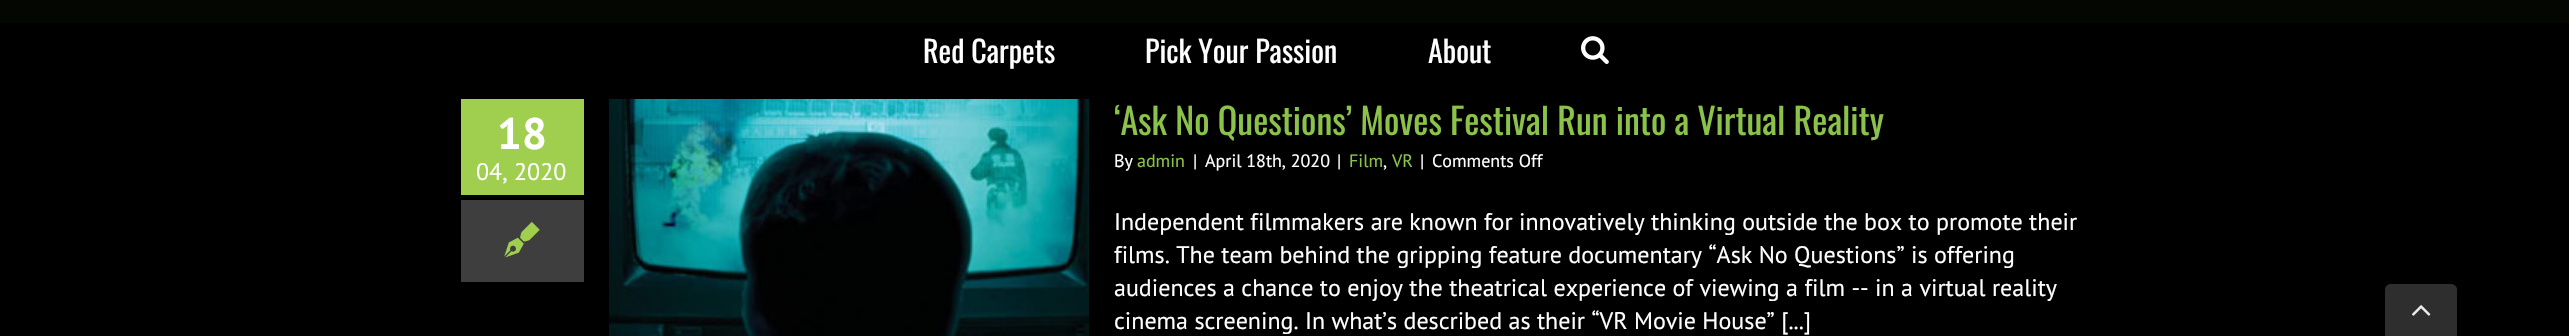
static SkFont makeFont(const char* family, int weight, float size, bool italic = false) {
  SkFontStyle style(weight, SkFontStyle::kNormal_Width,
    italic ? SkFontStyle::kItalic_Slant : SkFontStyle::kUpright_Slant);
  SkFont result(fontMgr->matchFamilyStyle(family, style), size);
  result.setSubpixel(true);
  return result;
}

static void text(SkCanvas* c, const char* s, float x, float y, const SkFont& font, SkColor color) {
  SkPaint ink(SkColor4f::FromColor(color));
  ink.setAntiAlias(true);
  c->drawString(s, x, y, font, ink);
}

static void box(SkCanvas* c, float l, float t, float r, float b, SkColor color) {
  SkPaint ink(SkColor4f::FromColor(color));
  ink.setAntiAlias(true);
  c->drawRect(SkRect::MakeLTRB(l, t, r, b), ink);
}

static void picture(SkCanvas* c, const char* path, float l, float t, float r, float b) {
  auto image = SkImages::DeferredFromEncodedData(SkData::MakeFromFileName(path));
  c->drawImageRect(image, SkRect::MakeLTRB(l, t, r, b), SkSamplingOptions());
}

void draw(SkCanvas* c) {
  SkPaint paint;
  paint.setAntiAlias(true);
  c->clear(0xff000000);
  picture(c, "img_01.png", 0, 0, 2569, 23);
  SkFont face1 = makeFont("Oswald", 400, 30);
  text(c, "Red Carpets", 923, 63, face1, 0xffffffff);
  text(c, "Pick Your Passion", 1145, 63, face1, 0xffffffff);
  text(c, "About", 1428, 63, face1, 0xffffffff);
  picture(c, "img_02.png", 1581, 36, 1609, 64);
  box(c, 461, 99, 584, 195, 0xffa0ce4e);
  SkFont face2 = makeFont("PT Sans", 700, 44);
  text(c, "18", 497, 149, face2, 0xffffffff);
  SkFont face3 = makeFont("PT Sans", 400, 24);
  text(c, "04, 2020", 476, 180, face3, 0xffffffff);
  box(c, 461, 200, 584, 282, 0xff3e3e3e);
  picture(c, "img_03.png", 504, 222, 540, 258);
  picture(c, "img_04.png", 609, 99, 1089, 336);
  SkFont face4 = makeFont("Oswald", 400, 36);
  text(c, "‘Ask No Questions’ Moves Festival Run into a Virtual Reality", 1114, 135, face4, 0xff8bc34a);
  SkFont face5 = makeFont("PT Sans", 400, 18);
  text(c, "By", 1114, 167, face5, 0xffffffff);
  text(c, "admin", 1137, 167, face5, 0xff8bc34a);
  text(c, "|", 1193, 167, face5, 0xffffffff);
  text(c, "April 18th, 2020", 1205, 167, face5, 0xffffffff);
  text(c, "|", 1337, 167, face5, 0xffffffff);
  text(c, "Film", 1349, 167, face5, 0xff8bc34a);
  text(c, ",", 1383, 167, face5, 0xffffffff);
  text(c, "VR", 1392, 167, face5, 0xff8bc34a);
  text(c, "|", 1420, 167, face5, 0xffffffff);
  text(c, "Comments Off", 1432, 167, face5, 0xffffffff);
  text(c, "Independent filmmakers are known for innovatively thinking outside the box to promote their", 1114, 230, face3, 0xffffffff);
  text(c, "films. The team behind the gripping feature documentary “Ask No Questions” is offering", 1114, 263, face3, 0xffffffff);
  text(c, "audiences a chance to enjoy the theatrical experience of viewing a film -- in a virtual reality", 1114, 296, face3, 0xffffffff);
  text(c, "cinema screening. In what’s described as their “VR Movie House” [...]", 1114, 329, face3, 0xffffffff);
  paint.setColor(0xff2e2e2e);
  c->drawPath(SkPathBuilder().moveTo(2391, 284).lineTo(2451, 284).cubicTo(2454.5f, 284, 2457, 286.5f, 2457, 290).lineTo(2457, 336).lineTo(2385, 336).lineTo(2385, 290).cubicTo(2385, 286.5f, 2387.5f, 284, 2391, 284).close().detach(), paint);
  picture(c, "img_05.png", 2412, 305, 2431, 316);
}
